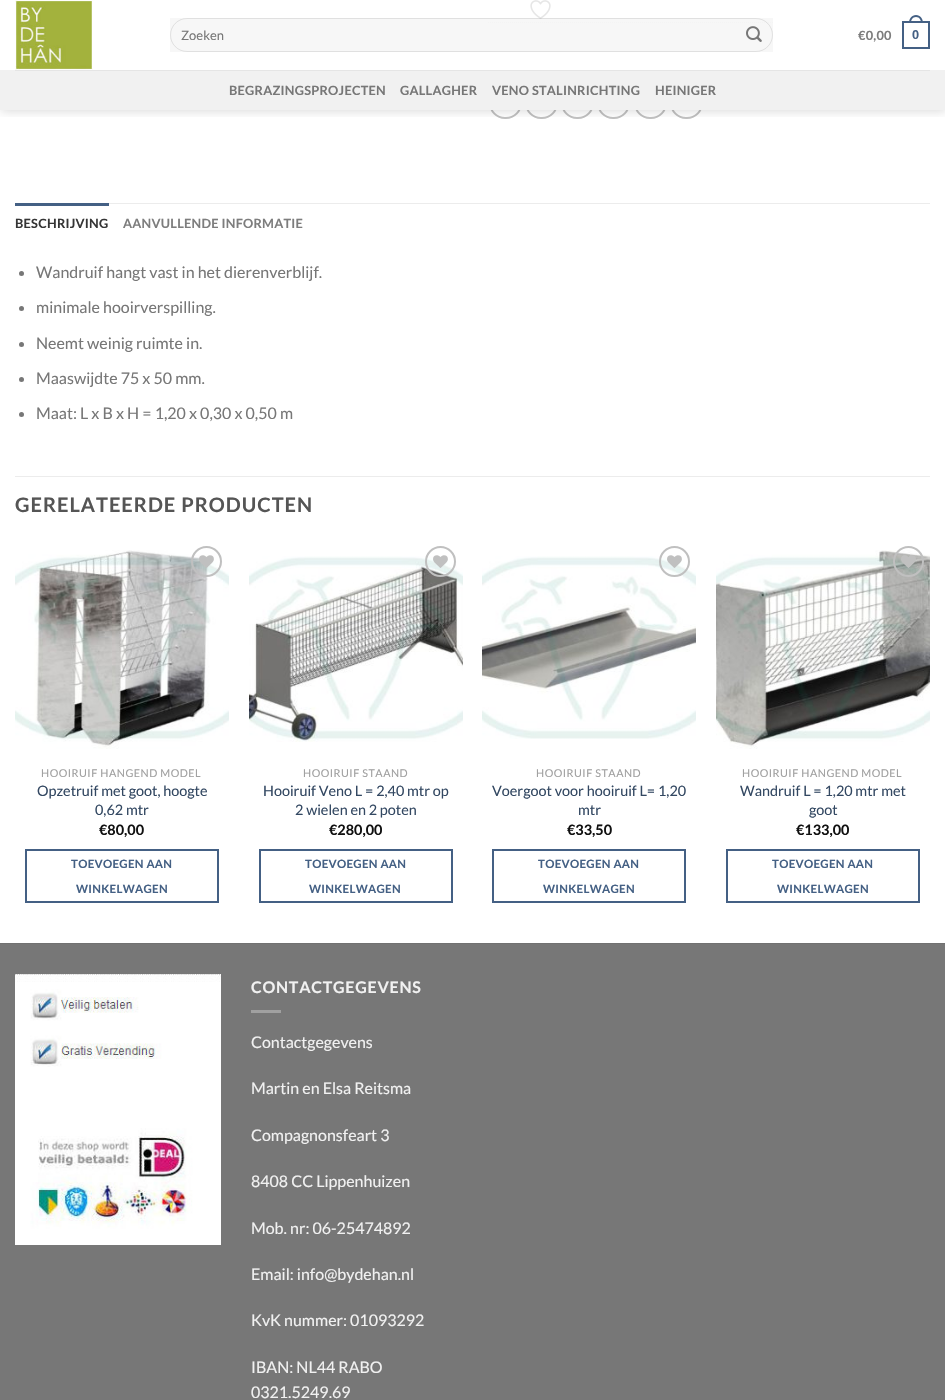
static SkFont makeFont(const char* family, int weight, float size, bool italic = false) {
  SkFontStyle style(weight, SkFontStyle::kNormal_Width,
    italic ? SkFontStyle::kItalic_Slant : SkFontStyle::kUpright_Slant);
  SkFont result(fontMgr->matchFamilyStyle(family, style), size);
  result.setSubpixel(true);
  return result;
}

static void text(SkCanvas* c, const char* s, float x, float y, const SkFont& font, SkColor color) {
  SkPaint ink(SkColor4f::FromColor(color));
  ink.setAntiAlias(true);
  c->drawString(s, x, y, font, ink);
}

static void spacedText(SkCanvas* c, const char* s, float x, float y, const SkFont& font, const SkPaint& ink, float letter, float word) {
  std::vector<SkGlyphID> glyphs(font.countText(s, strlen(s), SkTextEncoding::kUTF8));
  std::vector<float> xs(glyphs.size());
  font.textToGlyphs(s, strlen(s), SkTextEncoding::kUTF8, glyphs);
  font.getXPos(glyphs, xs, x);
  float extra = 0;
  for (size_t i = 0; i < glyphs.size(); i++) {
    xs[i] += extra;
    extra += letter + word * (glyphs[i] == font.unicharToGlyph(' '));
  }
  c->drawTextBlob(SkTextBlob::MakeFromPosHGlyphs(glyphs, xs, y, font), 0, 0, ink);
}

static void box(SkCanvas* c, float l, float t, float r, float b, SkColor color) {
  SkPaint ink(SkColor4f::FromColor(color));
  ink.setAntiAlias(true);
  c->drawRect(SkRect::MakeLTRB(l, t, r, b), ink);
}

static void picture(SkCanvas* c, const char* path, float l, float t, float r, float b) {
  auto image = SkImages::DeferredFromEncodedData(SkData::MakeFromFileName(path));
  c->drawImageRect(image, SkRect::MakeLTRB(l, t, r, b), SkSamplingOptions());
}

void draw(SkCanvas* c) {
  SkPaint paint;
  paint.setAntiAlias(true);
  c->clear(0xffffffff);
  picture(c, "img_03.png", 530, 0, 551, 19);
  paint.setStyle(SkPaint::kStroke_Style);
  paint.setStrokeWidth(1);
  paint.setColor(0xffdddddd);
  paint.setPathEffect(SkDashPathEffect::Make({{1, 1}}, 0));
  c->drawPath(SkPathBuilder().moveTo(488, 22.5f).lineTo(773, 22.5f).detach(), paint);
  paint.setPathEffect(nullptr);
  paint.setStrokeWidth(2);
  paint.setColor(0xffc0c0c0);
  c->drawRoundRect(SkRect::MakeLTRB(490, 88, 521, 118), 15, 15, paint);
  c->drawRoundRect(SkRect::MakeLTRB(526, 88, 557, 118), 15, 15, paint);
  c->drawRoundRect(SkRect::MakeLTRB(562, 88, 593, 118), 15, 15, paint);
  c->drawRoundRect(SkRect::MakeLTRB(598, 88, 629, 118), 15, 15, paint);
  c->drawRoundRect(SkRect::MakeLTRB(635, 88, 666, 118), 15, 15, paint);
  c->drawRoundRect(SkRect::MakeLTRB(671, 88, 702, 118), 15, 15, paint);
  c->save();
  c->clipRect(SkRect::MakeLTRB(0, 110, 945, 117));
  paint.setStyle(SkPaint::kFill_Style);
  paint.setColor(0x26000000);
  paint.setMaskFilter(SkMaskFilter::MakeBlur(kNormal_SkBlurStyle, 5));
  c->drawRect(SkRect::MakeLTRB(1, 1, 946, 111), paint);
  paint.setMaskFilter(nullptr);
  c->restore();
  box(c, 488, 0, 773, 23, 0xe6ffffff);
  picture(c, "img_01.png", 15, 0, 93, 70);
  box(c, 170, 18, 773, 52, 0x08000000);
  paint.setStyle(SkPaint::kStroke_Style);
  paint.setStrokeWidth(1);
  paint.setColor(0x17000000);
  c->drawRoundRect(SkRect::MakeLTRB(170.5f, 18.5f, 772.5f, 51.5f), 16.5f, 16.5f, paint);
  SkFont face1 = makeFont("Lato", 400, 13);
  text(c, "Zoeken", 181, 40, face1, 0xff777777);
  picture(c, "img_02.png", 746, 26, 762, 42);
  SkFont face2 = makeFont("Lato", 700, 12.75f);
  paint.setStyle(SkPaint::kFill_Style);
  paint.setColor(0xff7d7d7d);
  spacedText(c, "€0,00", 858, 40, face2, paint, 0.25f, 0);
  paint.setStyle(SkPaint::kStroke_Style);
  paint.setStrokeWidth(2);
  paint.setColor(0xff446084);
  c->drawRect(SkRect::MakeLTRB(903, 22, 929, 48), paint);
  paint.setStyle(SkPaint::kFill_Style);
  c->drawPath(SkPathBuilder(SkPathFillType::kEvenOdd).moveTo(916, 15).cubicTo(920.5f, 15, 923, 19, 923, 23).lineTo(909, 23).cubicTo(909, 19, 911.5f, 15, 916, 15).close().moveTo(916, 17).cubicTo(919.5f, 17, 921, 20, 921, 23).lineTo(911, 23).cubicTo(911, 20, 912.5f, 17, 916, 17).close().detach(), paint);
  SkFont face3 = makeFont("Liberation Sans", 700, 12.75f);
  spacedText(c, "0", 912, 39, face3, paint, 0.25f, 0);
  box(c, 0, 70, 945, 110, 0xfff1f1f1);
  box(c, 15, 70, 930, 71, 0xffe5e5e5);
  paint.setColor(0xff777777);
  spacedText(c, "BEGRAZINGSPROJECTEN", 229, 95, face2, paint, 0.25f, 0);
  spacedText(c, "GALLAGHER", 400, 95, face2, paint, 0.25f, 0);
  spacedText(c, "VENO STALINRICHTING", 492, 95, face2, paint, 0.25f, 0);
  spacedText(c, "HEINIGER", 655, 95, face2, paint, 0.25f, 0);
  box(c, 109, 203, 930, 204, 0xffececec);
  box(c, 15, 203, 109, 206, 0xff446084);
  paint.setColor(0xff353535);
  spacedText(c, "BESCHRIJVING", 15, 228, face2, paint, 0.25f, 0);
  paint.setColor(0xff7d7d7d);
  spacedText(c, "AANVULLENDE INFORMATIE", 123, 228, face2, paint, 0.25f, 0);
  paint.setColor(0xff777777);
  c->drawCircle(21.5f, 273.5f, 2.5f, paint);
  SkFont face4 = makeFont("Lato", 400, 16);
  text(c, "Wandruif hangt vast in het dierenverblijf.", 36, 278, face4, 0xff777777);
  c->drawCircle(21.5f, 308.5f, 2.5f, paint);
  text(c, "minimale hooirverspilling.", 36, 313, face4, 0xff777777);
  c->drawCircle(21.5f, 344.5f, 2.5f, paint);
  text(c, "Neemt weinig ruimte in.", 36, 349, face4, 0xff777777);
  c->drawCircle(21.5f, 379.5f, 2.5f, paint);
  text(c, "Maaswijdte 75 x 50 mm.", 36, 384, face4, 0xff777777);
  c->drawCircle(21.5f, 414.5f, 2.5f, paint);
  text(c, "Maat: L x B x H = 1,20 x 0,30 x 0,50 m", 36, 419, face4, 0xff777777);
  box(c, 15, 476, 930, 477, 0xffececec);
  SkFont face5 = makeFont("Lato", 700, 20);
  paint.setColor(0xff555555);
  spacedText(c, "GERELATEERDE PRODUCTEN", 15, 512, face5, paint, 1, 0);
  picture(c, "img_05.png", 15, 550, 229, 749);
  paint.setStyle(SkPaint::kStroke_Style);
  paint.setColor(0xffc0c0c0);
  c->drawCircle(206.5f, 561.5f, 14.5f, paint);
  picture(c, "img_04.png", 199, 555, 214, 568);
  SkFont face6 = makeFont("Lato", 400, 10.75f);
  paint.setStyle(SkPaint::kFill_Style);
  paint.setColor(0xffa0a0a0);
  spacedText(c, "HOOIRUIF HANGEND MODEL", 41, 777, face6, paint, 0.5f, 0);
  SkFont face7 = makeFont("Lato", 400, 14.4f);
  text(c, "Opzetruif met goot, hoogte", 37, 796, face7, 0xff334862);
  text(c, "0,62 mtr", 95, 815, face7, 0xff334862);
  SkFont face8 = makeFont("Lato", 700, 14.4f);
  text(c, "€80,00", 99, 835, face8, 0xff111111);
  paint.setStyle(SkPaint::kStroke_Style);
  paint.setColor(0xff446084);
  c->drawRect(SkRect::MakeLTRB(26, 850, 218, 902), paint);
  SkFont face9 = makeFont("Lato", 700, 11.5f);
  paint.setStyle(SkPaint::kFill_Style);
  spacedText(c, "TOEVOEGEN AAN", 71, 868, face9, paint, 0.3f, 0);
  spacedText(c, "WINKELWAGEN", 76, 893, face9, paint, 0.3f, 0);
  picture(c, "img_07.png", 249, 556, 463, 742);
  paint.setStyle(SkPaint::kStroke_Style);
  paint.setColor(0xffc0c0c0);
  c->drawCircle(440.5f, 561.5f, 14.5f, paint);
  picture(c, "img_06.png", 433, 555, 448, 568);
  paint.setStyle(SkPaint::kFill_Style);
  paint.setColor(0xffa0a0a0);
  spacedText(c, "HOOIRUIF STAAND", 303, 777, face6, paint, 0.5f, 0);
  text(c, "Hooiruif Veno L = 2,40 mtr op", 263, 796, face7, 0xff334862);
  text(c, "2 wielen en 2 poten", 295, 815, face7, 0xff334862);
  text(c, "€280,00", 329, 835, face8, 0xff111111);
  paint.setStyle(SkPaint::kStroke_Style);
  paint.setColor(0xff446084);
  c->drawRect(SkRect::MakeLTRB(260, 850, 452, 902), paint);
  paint.setStyle(SkPaint::kFill_Style);
  spacedText(c, "TOEVOEGEN AAN", 305, 868, face9, paint, 0.3f, 0);
  spacedText(c, "WINKELWAGEN", 309, 893, face9, paint, 0.3f, 0);
  picture(c, "img_09.png", 482, 556, 696, 739);
  paint.setStyle(SkPaint::kStroke_Style);
  paint.setColor(0xffc0c0c0);
  c->drawCircle(674.5f, 561.5f, 14.5f, paint);
  picture(c, "img_08.png", 667, 555, 682, 568);
  paint.setStyle(SkPaint::kFill_Style);
  paint.setColor(0xffa0a0a0);
  spacedText(c, "HOOIRUIF STAAND", 536, 777, face6, paint, 0.5f, 0);
  text(c, "Voergoot voor hooiruif L= 1,20", 492, 796, face7, 0xff334862);
  text(c, "mtr", 578, 815, face7, 0xff334862);
  text(c, "€33,50", 567, 835, face8, 0xff111111);
  paint.setStyle(SkPaint::kStroke_Style);
  paint.setColor(0xff446084);
  c->drawRect(SkRect::MakeLTRB(493, 850, 685, 902), paint);
  paint.setStyle(SkPaint::kFill_Style);
  spacedText(c, "TOEVOEGEN AAN", 538, 868, face9, paint, 0.3f, 0);
  spacedText(c, "WINKELWAGEN", 543, 893, face9, paint, 0.3f, 0);
  picture(c, "img_11.png", 716, 550, 930, 749);
  paint.setStyle(SkPaint::kStroke_Style);
  paint.setColor(0xffc0c0c0);
  c->drawCircle(908.5f, 561.5f, 14.5f, paint);
  picture(c, "img_10.png", 901, 555, 916, 568);
  paint.setStyle(SkPaint::kFill_Style);
  paint.setColor(0xffa0a0a0);
  spacedText(c, "HOOIRUIF HANGEND MODEL", 742, 777, face6, paint, 0.5f, 0);
  text(c, "Wandruif L = 1,20 mtr met", 740, 796, face7, 0xff334862);
  text(c, "goot", 809, 815, face7, 0xff334862);
  text(c, "€133,00", 796, 835, face8, 0xff111111);
  paint.setStyle(SkPaint::kStroke_Style);
  paint.setColor(0xff446084);
  c->drawRect(SkRect::MakeLTRB(727, 850, 919, 902), paint);
  paint.setStyle(SkPaint::kFill_Style);
  spacedText(c, "TOEVOEGEN AAN", 772, 868, face9, paint, 0.3f, 0);
  spacedText(c, "WINKELWAGEN", 777, 893, face9, paint, 0.3f, 0);
  box(c, 0, 944, 945, 1400, 0xff777777);
  box(c, 0, 943, 945, 944, 0xff717171);
  picture(c, "img_12.png", 15, 974, 221, 1245);
  SkFont face10 = makeFont("Lato", 700, 16);
  paint.setColor(0xfff1f1f1);
  spacedText(c, "CONTACTGEGEVENS", 251, 993, face10, paint, 0.75f, 0);
  box(c, 251, 1010, 281, 1013, 0xffa0a0a0);
  text(c, "Contactgegevens", 251, 1048, face4, 0xfff1f1f1);
  text(c, "Martin en Elsa Reitsma", 251, 1094, face4, 0xfff1f1f1);
  text(c, "Compagnonsfeart 3", 251, 1141, face4, 0xfff1f1f1);
  text(c, "8408 CC Lippenhuizen", 251, 1187, face4, 0xfff1f1f1);
  text(c, "Mob. nr: 06-25474892", 251, 1234, face4, 0xfff1f1f1);
  text(c, "Email: info@bydehan.nl", 251, 1280, face4, 0xfff1f1f1);
  text(c, "KvK nummer: 01093292", 251, 1326, face4, 0xfff1f1f1);
  text(c, "IBAN: NL44 RABO", 251, 1373, face4, 0xfff1f1f1);
  text(c, "0321.5249.69", 251, 1398, face4, 0xfff1f1f1);
}
